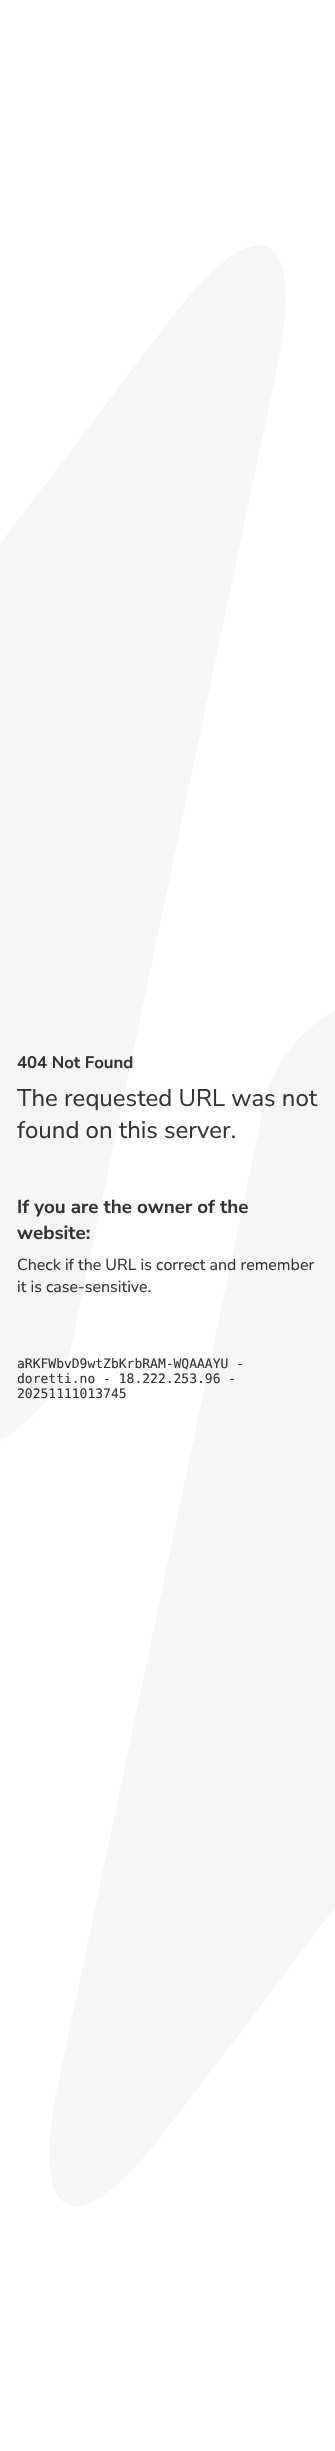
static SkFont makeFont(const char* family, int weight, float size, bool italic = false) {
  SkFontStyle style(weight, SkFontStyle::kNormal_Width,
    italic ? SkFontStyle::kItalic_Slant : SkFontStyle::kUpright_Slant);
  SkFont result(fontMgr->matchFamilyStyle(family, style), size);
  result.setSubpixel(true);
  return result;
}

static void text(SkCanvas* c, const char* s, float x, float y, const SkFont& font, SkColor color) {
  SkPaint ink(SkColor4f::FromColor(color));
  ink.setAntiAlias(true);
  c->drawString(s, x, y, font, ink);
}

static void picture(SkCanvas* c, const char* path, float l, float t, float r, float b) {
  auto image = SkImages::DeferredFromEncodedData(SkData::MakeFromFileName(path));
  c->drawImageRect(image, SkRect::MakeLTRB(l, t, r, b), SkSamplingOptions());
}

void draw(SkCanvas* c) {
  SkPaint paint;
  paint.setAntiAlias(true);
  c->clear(0xffffffff);
  picture(c, "img_01.png", 0, 245, 335, 2206);
  SkFont face1 = makeFont("Nunito Sans", 700, 16.75f);
  text(c, "404 Not Found", 17, 1068, face1, 0xff333333);
  SkFont face2 = makeFont("Nunito Sans", 400, 24);
  text(c, "The requested URL was not", 17, 1106, face2, 0xff333333);
  text(c, "found on this server.", 17, 1138, face2, 0xff333333);
  SkFont face3 = makeFont("Nunito Sans", 700, 18.75f);
  text(c, "If you are the owner of the", 17, 1213, face3, 0xff333333);
  text(c, "website:", 17, 1239, face3, 0xff333333);
  SkFont face4 = makeFont("Nunito Sans", 400, 16);
  text(c, "Check if the URL is correct and remember", 17, 1270, face4, 0xff333333);
  text(c, "it is case-sensitive.", 17, 1292, face4, 0xff333333);
  SkFont face5 = makeFont("DejaVu Sans Mono", 400, 13);
  text(c, "aRKFWbvD9wtZbKrbRAM-WQAAAYU -", 17, 1368, face5, 0xff333333);
  text(c, "doretti.no - 18.222.253.96 -", 17, 1383, face5, 0xff333333);
  text(c, "20251111013745", 17, 1398, face5, 0xff333333);
}
